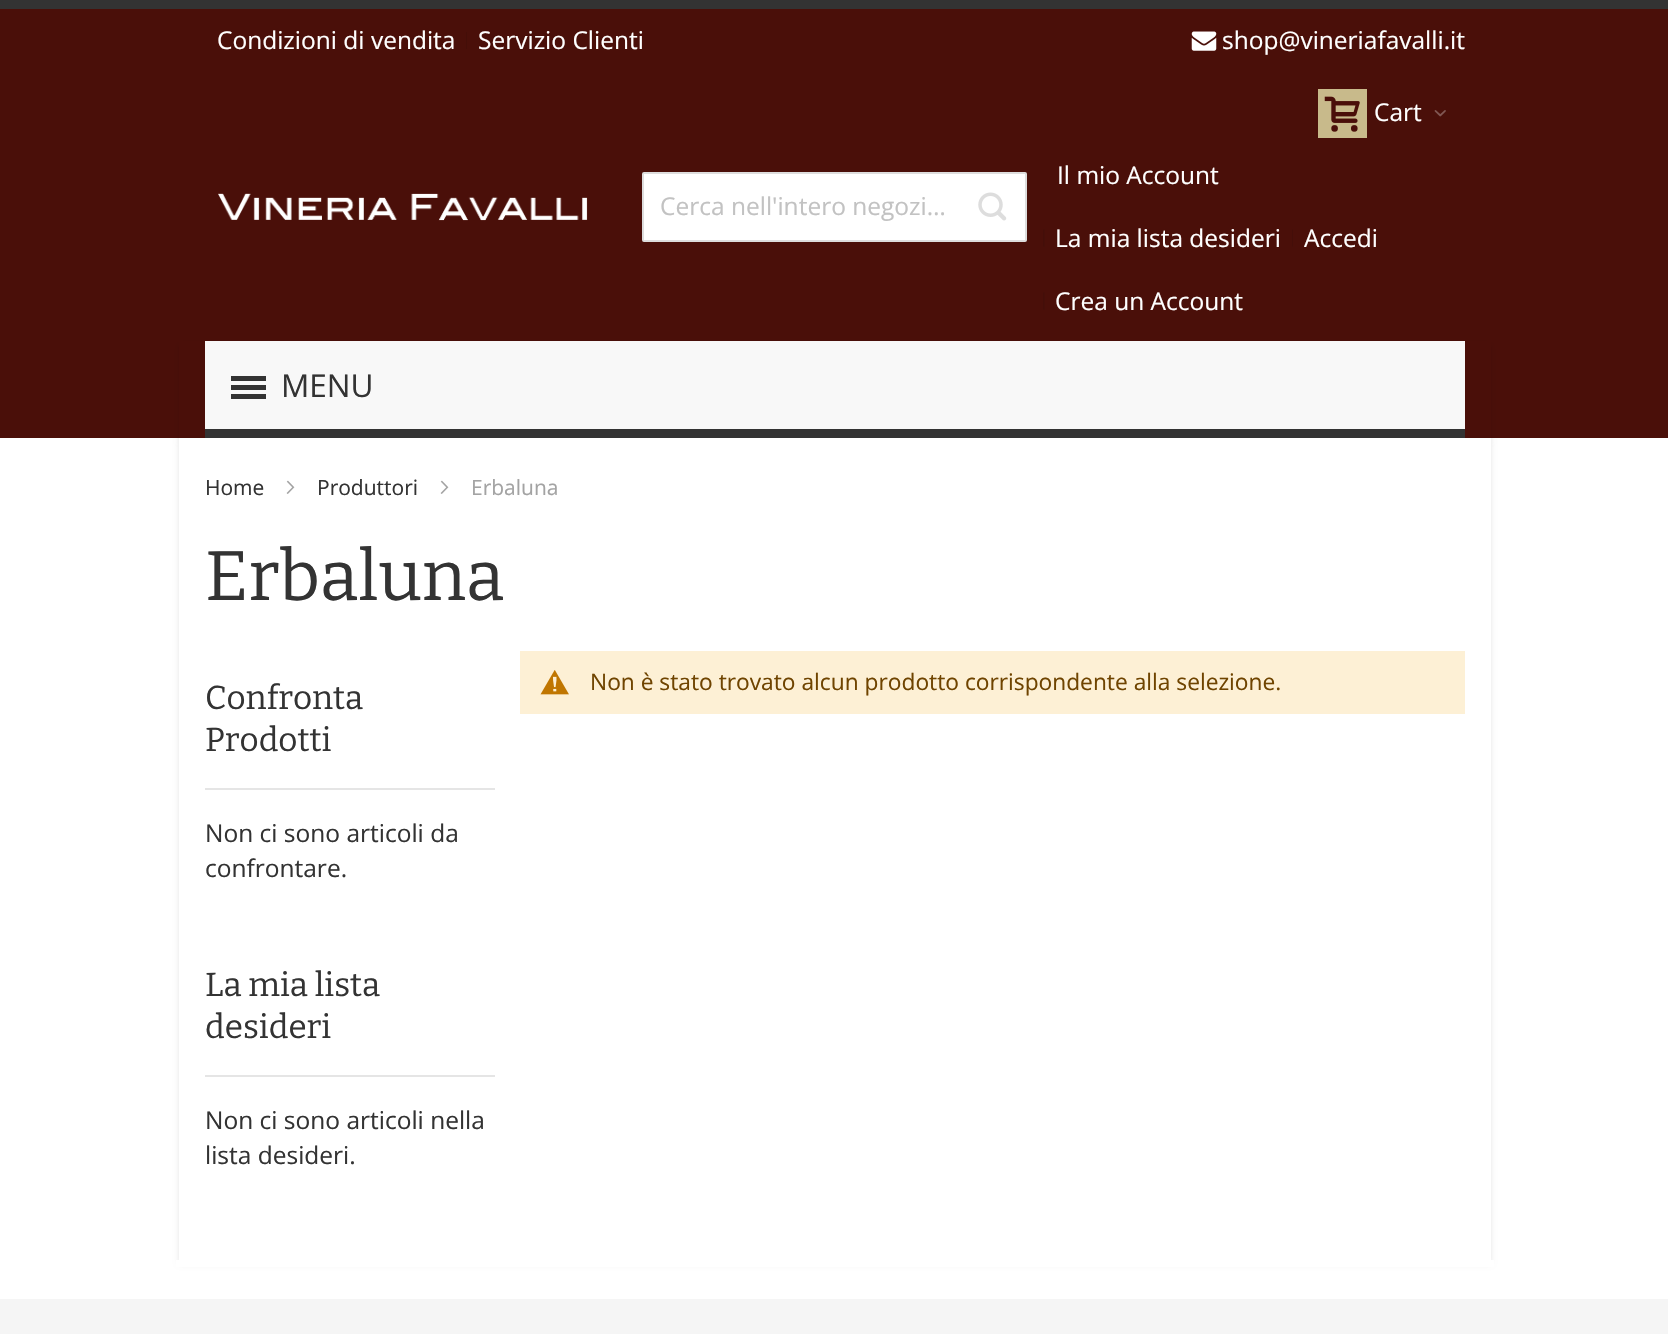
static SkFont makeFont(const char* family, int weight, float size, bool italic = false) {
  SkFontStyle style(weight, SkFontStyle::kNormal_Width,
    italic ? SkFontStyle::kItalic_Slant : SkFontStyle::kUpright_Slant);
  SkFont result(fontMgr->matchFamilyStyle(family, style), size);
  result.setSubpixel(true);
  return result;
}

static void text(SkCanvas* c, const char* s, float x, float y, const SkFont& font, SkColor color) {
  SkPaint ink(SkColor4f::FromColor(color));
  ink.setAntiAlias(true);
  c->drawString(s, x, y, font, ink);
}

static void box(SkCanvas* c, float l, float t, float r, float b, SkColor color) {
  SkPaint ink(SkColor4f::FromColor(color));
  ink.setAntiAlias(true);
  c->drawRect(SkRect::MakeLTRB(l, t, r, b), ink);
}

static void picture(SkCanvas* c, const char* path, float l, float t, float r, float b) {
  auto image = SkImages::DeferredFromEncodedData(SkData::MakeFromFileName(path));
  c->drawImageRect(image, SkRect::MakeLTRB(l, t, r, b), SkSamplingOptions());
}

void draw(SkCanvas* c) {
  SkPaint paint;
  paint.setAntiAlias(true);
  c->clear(0xffffffff);
  box(c, 0, 0, 1668, 9, 0xff333333);
  box(c, 0, 9, 1668, 438, 0xff4a0f09);
  box(c, 466, 32, 467, 49, 0xff440e08);
  SkFont face1 = makeFont("Open Sans", 400, 24.5f);
  text(c, "Condizioni di vendita", 217, 49, face1, 0xffffffff);
  text(c, "Servizio Clienti", 478, 49, face1, 0xffffffff);
  picture(c, "img_01.png", 1191, 31, 1217, 51);
  text(c, "shop@vineriafavalli.it", 1222, 49, face1, 0xffffffff);
  picture(c, "img_02.png", 218, 193, 588, 221);
  paint.setColor(0xffffffff);
  c->drawRoundRect(SkRect::MakeLTRB(643, 173, 1026, 241), 1, 1, paint);
  paint.setStyle(SkPaint::kStroke_Style);
  paint.setStrokeWidth(2);
  paint.setColor(0xffdddddd);
  c->drawRoundRect(SkRect::MakeLTRB(643, 173, 1026, 241), 1, 1, paint);
  text(c, "Cerca nell'intero negozi…", 660, 215, face1, 0xffc2c2c2);
  picture(c, "img_03.png", 978, 192, 1007, 221);
  box(c, 1318, 89, 1367, 138, 0xffc8ba8b);
  picture(c, "img_04.png", 1324, 96, 1360, 132);
  text(c, "Cart", 1374, 121, face1, 0xffffffff);
  picture(c, "img_05.png", 1434, 110, 1446, 117);
  text(c, "Il mio Account", 1057, 184, face1, 0xffffffff);
  picture(c, "img_06.png", 1043, 229, 1045, 247);
  text(c, "La mia lista desideri", 1055, 247, face1, 0xffffffff);
  picture(c, "img_07.png", 1292, 229, 1293, 247);
  text(c, "Accedi", 1304, 247, face1, 0xffffffff);
  picture(c, "img_06.png", 1043, 292, 1045, 310);
  text(c, "Crea un Account", 1055, 310, face1, 0xffffffff);
  c->save();
  c->clipPath(SkPathBuilder(SkPathFillType::kEvenOdd).moveTo(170, 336).lineTo(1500, 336).lineTo(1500, 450).lineTo(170, 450).close().moveTo(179, 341).lineTo(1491, 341).lineTo(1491, 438).lineTo(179, 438).close().detach(), true);
  paint.setStyle(SkPaint::kFill_Style);
  paint.setColor(0x1a000000);
  paint.setMaskFilter(SkMaskFilter::MakeBlur(kNormal_SkBlurStyle, 2.5f));
  c->drawRect(SkRect::MakeLTRB(179, 345, 1491, 441), paint);
  paint.setMaskFilter(nullptr);
  c->restore();
  box(c, 205, 341, 1465, 429, 0xfff8f8f8);
  box(c, 231, 376, 266, 381, 0xff333333);
  box(c, 231, 385, 266, 390, 0xff333333);
  box(c, 231, 394, 266, 399, 0xff333333);
  SkFont face2 = makeFont("Open Sans", 400, 31.5f);
  text(c, "MENU", 281, 397, face2, 0xff333333);
  paint.setMaskFilter(SkMaskFilter::MakeBlur(kNormal_SkBlurStyle, 2.5f));
  c->drawRect(SkRect::MakeLTRB(179, 441, 1491, 1264), paint);
  paint.setMaskFilter(nullptr);
  box(c, 205, 429, 1465, 438, 0xff333333);
  box(c, 179, 438, 1491, 1260, 0xffffffff);
  SkFont face3 = makeFont("Open Sans", 400, 21);
  text(c, "Home", 205, 495, face3, 0xff333333);
  picture(c, "img_08.png", 286, 480, 295, 494);
  text(c, "Produttori", 317, 495, face3, 0xff333333);
  picture(c, "img_08.png", 440, 480, 449, 494);
  text(c, "Erbaluna", 471, 495, face3, 0xffa3a3a3);
  SkFont face4 = makeFont("Bitter", 100, 70);
  text(c, "Erbaluna", 205, 600, face4, 0xff333333);
  box(c, 205, 788, 495, 790, 0xffe5e5e5);
  SkFont face5 = makeFont("Bitter", 100, 33.25f);
  text(c, "Confronta", 205, 709, face5, 0xff333333);
  text(c, "Prodotti", 205, 751, face5, 0xff333333);
  text(c, "Non ci sono articoli da", 205, 842, face1, 0xff333333);
  text(c, "confrontare.", 205, 877, face1, 0xff333333);
  box(c, 205, 1075, 495, 1077, 0xffe5e5e5);
  text(c, "La mia lista", 205, 996, face5, 0xff333333);
  text(c, "desideri", 205, 1038, face5, 0xff333333);
  text(c, "Non ci sono articoli nella", 205, 1129, face1, 0xff333333);
  text(c, "lista desideri.", 205, 1164, face1, 0xff333333);
  box(c, 520, 651, 1465, 714, 0xfffdf0d5);
  picture(c, "img_09.png", 540, 670, 569, 695);
  SkFont face6 = makeFont("Open Sans", 400, 22.75f);
  text(c, "Non è stato trovato alcun prodotto corrispondente alla selezione.", 590, 690, face6, 0xff6f4400);
  box(c, 0, 1299, 1668, 1334, 0xfff5f5f5);
  box(c, 176, 1260, 1494, 1267, 0xffffffff);
}
